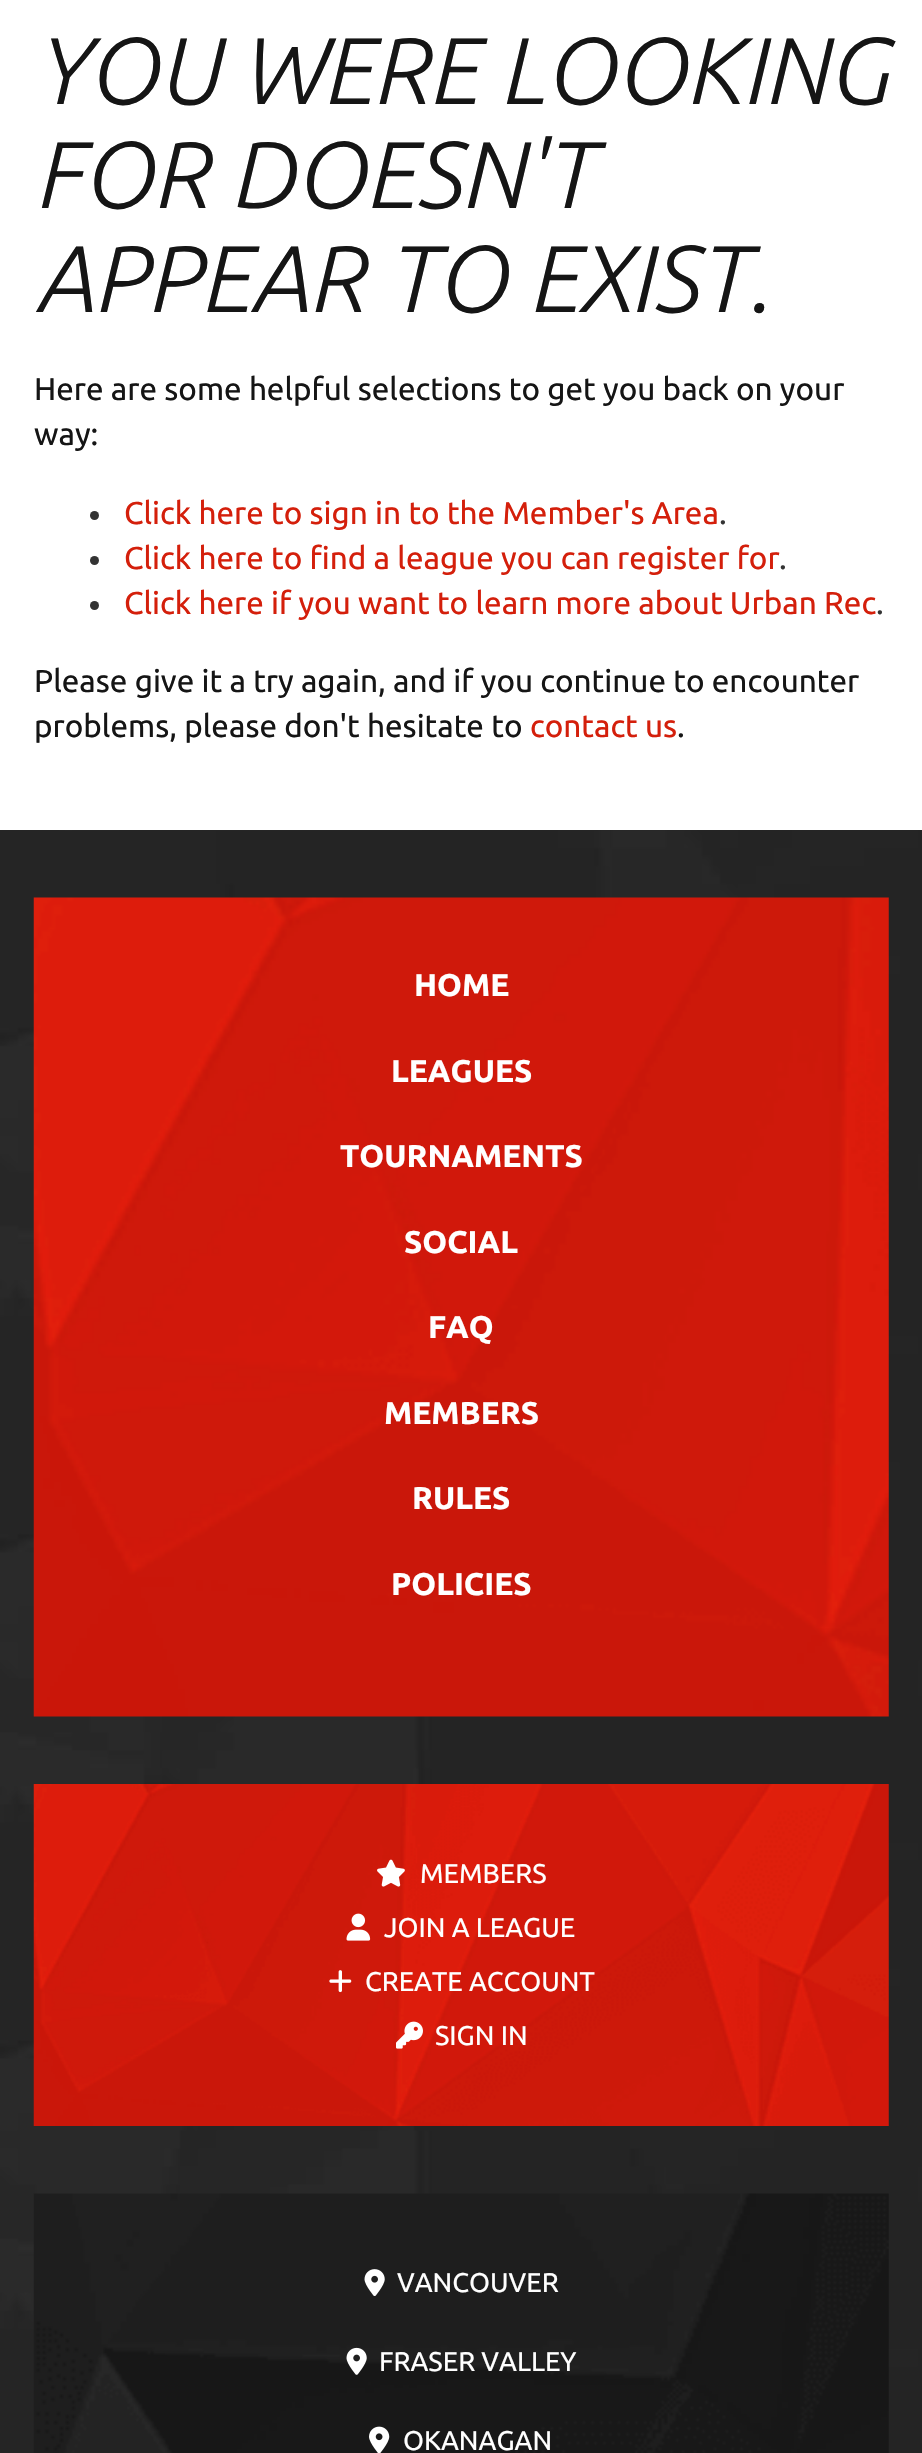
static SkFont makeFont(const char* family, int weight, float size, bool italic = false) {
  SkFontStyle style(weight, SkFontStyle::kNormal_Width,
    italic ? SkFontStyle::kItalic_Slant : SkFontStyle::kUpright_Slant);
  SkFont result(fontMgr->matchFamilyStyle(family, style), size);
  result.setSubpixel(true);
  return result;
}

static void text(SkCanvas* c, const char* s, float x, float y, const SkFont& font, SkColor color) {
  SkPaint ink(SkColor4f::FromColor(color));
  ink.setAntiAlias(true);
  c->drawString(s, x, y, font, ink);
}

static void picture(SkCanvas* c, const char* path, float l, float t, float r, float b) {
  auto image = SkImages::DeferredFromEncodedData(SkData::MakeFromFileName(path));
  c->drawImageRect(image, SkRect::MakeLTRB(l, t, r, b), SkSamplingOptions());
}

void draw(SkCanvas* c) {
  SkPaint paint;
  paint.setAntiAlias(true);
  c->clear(0xffffffff);
  SkFont face1 = makeFont("Ubuntu", 300, 94.5f, true);
  text(c, "YOU WERE LOOKING", 34, 104, face1, 0xff151515);
  text(c, "FOR DOESN'T", 34, 208, face1, 0xff151515);
  text(c, "APPEAR TO EXIST.", 34, 312, face1, 0xff151515);
  SkFont face2 = makeFont("Ubuntu", 400, 31.5f);
  text(c, "Here are some helpful selections to get you back on your", 34, 400, face2, 0xff151515);
  text(c, "way:", 34, 445, face2, 0xff151515);
  paint.setColor(0xff333333);
  c->drawCircle(94.5f, 515.5f, 4.5f, paint);
  text(c, "Click here to sign in to the Member's Area", 124, 524, face2, 0xffd41f0b);
  text(c, ".", 719, 524, face2, 0xff333333);
  c->drawCircle(94.5f, 560.5f, 4.5f, paint);
  text(c, "Click here to find a league you can register for", 124, 569, face2, 0xffd41f0b);
  text(c, ".", 779, 569, face2, 0xff333333);
  c->drawCircle(94.5f, 605.5f, 4.5f, paint);
  text(c, "Click here if you want to learn more about Urban Rec", 124, 614, face2, 0xffd41f0b);
  text(c, ".", 876, 614, face2, 0xff333333);
  text(c, "Please give it a try again, and if you continue to encounter", 34, 692, face2, 0xff151515);
  text(c, "problems, please don't hesitate to", 34, 737, face2, 0xff151515);
  text(c, "contact us", 530, 737, face2, 0xffd41f0b);
  text(c, ".", 677, 737, face2, 0xff151515);
  picture(c, "img_01.png", 0, 830, 922, 2453);
  picture(c, "img_02.png", 33, 897, 889, 1717);
  SkFont face3 = makeFont("Ubuntu", 700, 31.5f);
  text(c, "HOME", 414, 996, face3, 0xffffffff);
  text(c, "LEAGUES", 391, 1082, face3, 0xffffffff);
  text(c, "TOURNAMENTS", 340, 1167, face3, 0xffffffff);
  text(c, "SOCIAL", 404, 1253, face3, 0xffffffff);
  text(c, "FAQ", 428, 1338, face3, 0xffffffff);
  text(c, "MEMBERS", 384, 1424, face3, 0xffffffff);
  text(c, "RULES", 412, 1509, face3, 0xffffffff);
  text(c, "POLICIES", 391, 1595, face3, 0xffffffff);
  picture(c, "img_03.png", 33, 1784, 889, 2126);
  picture(c, "img_04.png", 377, 1859, 405, 1887);
  SkFont face4 = makeFont("Ubuntu", 400, 27);
  text(c, "MEMBERS", 420, 1883, face4, 0xffffffff);
  picture(c, "img_05.png", 346, 1913, 371, 1941);
  text(c, "JOIN A LEAGUE", 384, 1937, face4, 0xffffffff);
  picture(c, "img_06.png", 329, 1970, 352, 1993);
  text(c, "CREATE ACCOUNT", 365, 1991, face4, 0xffffffff);
  picture(c, "img_07.png", 396, 2021, 423, 2049);
  text(c, "SIGN IN", 435, 2045, face4, 0xffffffff);
  picture(c, "img_08.png", 33, 2193, 889, 2453);
  picture(c, "img_09.png", 364, 2269, 385, 2296);
  text(c, "VANCOUVER", 397, 2292, face4, 0xffffffff);
  picture(c, "img_10.png", 346, 2347, 367, 2375);
  text(c, "FRASER VALLEY", 379, 2371, face4, 0xffffffff);
  picture(c, "img_11.png", 369, 2426, 390, 2453);
  text(c, "OKANAGAN", 403, 2450, face4, 0xffffffff);
}
